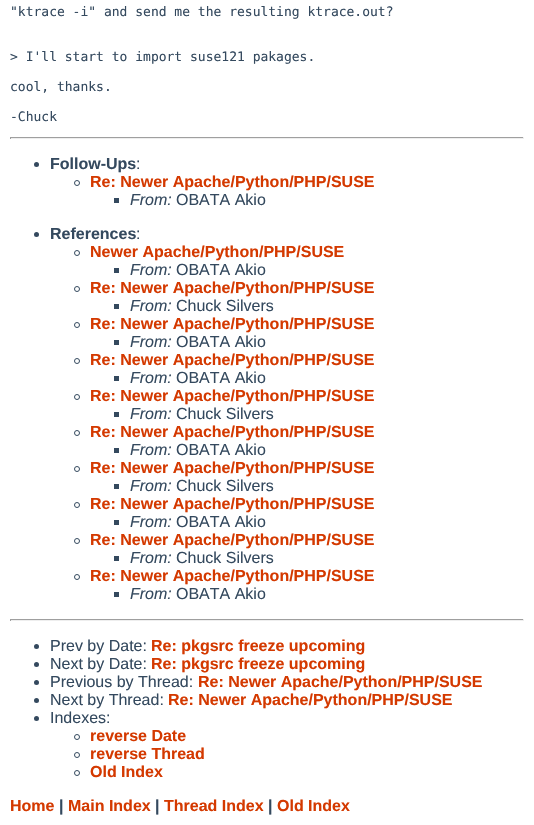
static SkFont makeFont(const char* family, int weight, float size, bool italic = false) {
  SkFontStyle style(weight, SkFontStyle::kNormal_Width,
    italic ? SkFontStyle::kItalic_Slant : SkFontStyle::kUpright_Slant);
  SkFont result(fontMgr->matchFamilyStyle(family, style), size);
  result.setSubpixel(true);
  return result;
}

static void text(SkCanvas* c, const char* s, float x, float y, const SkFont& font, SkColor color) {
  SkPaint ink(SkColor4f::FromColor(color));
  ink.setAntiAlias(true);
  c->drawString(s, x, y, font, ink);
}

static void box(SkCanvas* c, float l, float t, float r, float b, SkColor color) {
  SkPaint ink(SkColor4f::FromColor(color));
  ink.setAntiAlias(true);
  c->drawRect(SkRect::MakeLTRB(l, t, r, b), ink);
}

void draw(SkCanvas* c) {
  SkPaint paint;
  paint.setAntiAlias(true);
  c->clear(0xffffffff);
  SkFont face1 = makeFont("DejaVu Sans Mono", 400, 13);
  text(c, "\"ktrace -i\" and send me the resulting ktrace.out?", 10, 16, face1, 0xff34495e);
  text(c, "> I'll start to import suse121 pakages.", 10, 61, face1, 0xff34495e);
  text(c, "cool, thanks.", 10, 91, face1, 0xff34495e);
  text(c, "-Chuck", 10, 121, face1, 0xff34495e);
  box(c, 10, 137, 524, 138, 0xff9f9f9f);
  box(c, 523, 137, 524, 139, 0xffeeeeee);
  box(c, 10, 138, 524, 139, 0xffeeeeee);
  box(c, 10, 137, 11, 139, 0xff9f9f9f);
  paint.setColor(0xff34495e);
  c->drawCircle(36.5f, 164.5f, 2.5f, paint);
  SkFont face2 = makeFont("Liberation Sans", 700, 16);
  text(c, "Follow-Ups", 50, 169, face2, 0xff34495e);
  SkFont face3 = makeFont("Liberation Sans", 400, 16);
  text(c, ":", 136, 169, face3, 0xff34495e);
  paint.setStyle(SkPaint::kStroke_Style);
  paint.setStrokeWidth(1);
  c->drawCircle(77, 183, 2.5f, paint);
  text(c, "Re: Newer Apache/Python/PHP/SUSE", 90, 187, face2, 0xffd43900);
  box(c, 114, 198, 119, 203, 0xff34495e);
  SkFont face4 = makeFont("Liberation Sans", 400, 16, true);
  text(c, "From:", 130, 205, face4, 0xff34495e);
  text(c, "OBATA Akio", 176, 205, face3, 0xff34495e);
  paint.setStyle(SkPaint::kFill_Style);
  c->drawCircle(36.5f, 234.5f, 2.5f, paint);
  text(c, "References", 50, 239, face2, 0xff34495e);
  text(c, ":", 136, 239, face3, 0xff34495e);
  paint.setStyle(SkPaint::kStroke_Style);
  c->drawCircle(77, 253, 2.5f, paint);
  text(c, "Newer Apache/Python/PHP/SUSE", 90, 257, face2, 0xffd43900);
  box(c, 114, 268, 119, 273, 0xff34495e);
  text(c, "From:", 130, 275, face4, 0xff34495e);
  text(c, "OBATA Akio", 176, 275, face3, 0xff34495e);
  c->drawCircle(77, 289, 2.5f, paint);
  text(c, "Re: Newer Apache/Python/PHP/SUSE", 90, 293, face2, 0xffd43900);
  box(c, 114, 304, 119, 309, 0xff34495e);
  text(c, "From:", 130, 311, face4, 0xff34495e);
  text(c, "Chuck Silvers", 176, 311, face3, 0xff34495e);
  c->drawCircle(77, 325, 2.5f, paint);
  text(c, "Re: Newer Apache/Python/PHP/SUSE", 90, 329, face2, 0xffd43900);
  box(c, 114, 340, 119, 345, 0xff34495e);
  text(c, "From:", 130, 347, face4, 0xff34495e);
  text(c, "OBATA Akio", 176, 347, face3, 0xff34495e);
  c->drawCircle(77, 361, 2.5f, paint);
  text(c, "Re: Newer Apache/Python/PHP/SUSE", 90, 365, face2, 0xffd43900);
  box(c, 114, 376, 119, 381, 0xff34495e);
  text(c, "From:", 130, 383, face4, 0xff34495e);
  text(c, "OBATA Akio", 176, 383, face3, 0xff34495e);
  c->drawCircle(77, 397, 2.5f, paint);
  text(c, "Re: Newer Apache/Python/PHP/SUSE", 90, 401, face2, 0xffd43900);
  box(c, 114, 412, 119, 417, 0xff34495e);
  text(c, "From:", 130, 419, face4, 0xff34495e);
  text(c, "Chuck Silvers", 176, 419, face3, 0xff34495e);
  c->drawCircle(77, 433, 2.5f, paint);
  text(c, "Re: Newer Apache/Python/PHP/SUSE", 90, 437, face2, 0xffd43900);
  box(c, 114, 448, 119, 453, 0xff34495e);
  text(c, "From:", 130, 455, face4, 0xff34495e);
  text(c, "OBATA Akio", 176, 455, face3, 0xff34495e);
  c->drawCircle(77, 469, 2.5f, paint);
  text(c, "Re: Newer Apache/Python/PHP/SUSE", 90, 473, face2, 0xffd43900);
  box(c, 114, 484, 119, 489, 0xff34495e);
  text(c, "From:", 130, 491, face4, 0xff34495e);
  text(c, "Chuck Silvers", 176, 491, face3, 0xff34495e);
  c->drawCircle(77, 505, 2.5f, paint);
  text(c, "Re: Newer Apache/Python/PHP/SUSE", 90, 509, face2, 0xffd43900);
  box(c, 114, 520, 119, 525, 0xff34495e);
  text(c, "From:", 130, 527, face4, 0xff34495e);
  text(c, "OBATA Akio", 176, 527, face3, 0xff34495e);
  c->drawCircle(77, 541, 2.5f, paint);
  text(c, "Re: Newer Apache/Python/PHP/SUSE", 90, 545, face2, 0xffd43900);
  box(c, 114, 556, 119, 561, 0xff34495e);
  text(c, "From:", 130, 563, face4, 0xff34495e);
  text(c, "Chuck Silvers", 176, 563, face3, 0xff34495e);
  c->drawCircle(77, 577, 2.5f, paint);
  text(c, "Re: Newer Apache/Python/PHP/SUSE", 90, 581, face2, 0xffd43900);
  box(c, 114, 592, 119, 597, 0xff34495e);
  text(c, "From:", 130, 599, face4, 0xff34495e);
  text(c, "OBATA Akio", 176, 599, face3, 0xff34495e);
  box(c, 10, 619, 524, 620, 0xff9f9f9f);
  box(c, 523, 619, 524, 621, 0xffeeeeee);
  box(c, 10, 620, 524, 621, 0xffeeeeee);
  box(c, 10, 619, 11, 621, 0xff9f9f9f);
  paint.setStyle(SkPaint::kFill_Style);
  c->drawCircle(36.5f, 646.5f, 2.5f, paint);
  text(c, "Prev by Date:", 50, 651, face3, 0xff34495e);
  text(c, "Re: pkgsrc freeze upcoming", 151, 651, face2, 0xffd43900);
  c->drawCircle(36.5f, 664.5f, 2.5f, paint);
  text(c, "Next by Date:", 50, 669, face3, 0xff34495e);
  text(c, "Re: pkgsrc freeze upcoming", 151, 669, face2, 0xffd43900);
  c->drawCircle(36.5f, 682.5f, 2.5f, paint);
  text(c, "Previous by Thread:", 50, 687, face3, 0xff34495e);
  text(c, "Re: Newer Apache/Python/PHP/SUSE", 198, 687, face2, 0xffd43900);
  c->drawCircle(36.5f, 700.5f, 2.5f, paint);
  text(c, "Next by Thread:", 50, 705, face3, 0xff34495e);
  text(c, "Re: Newer Apache/Python/PHP/SUSE", 168, 705, face2, 0xffd43900);
  c->drawCircle(36.5f, 718.5f, 2.5f, paint);
  text(c, "Indexes:", 50, 723, face3, 0xff34495e);
  paint.setStyle(SkPaint::kStroke_Style);
  c->drawCircle(77, 737, 2.5f, paint);
  text(c, "reverse Date", 90, 741, face2, 0xffd43900);
  c->drawCircle(77, 755, 2.5f, paint);
  text(c, "reverse Thread", 90, 759, face2, 0xffd43900);
  c->drawCircle(77, 773, 2.5f, paint);
  text(c, "Old Index", 90, 777, face2, 0xffd43900);
  text(c, "Home", 10, 811, face2, 0xffd43900);
  text(c, "|", 59, 811, face2, 0xff34495e);
  text(c, "Main Index", 68, 811, face2, 0xffd43900);
  text(c, "|", 155, 811, face2, 0xff34495e);
  text(c, "Thread Index", 164, 811, face2, 0xffd43900);
  text(c, "|", 268, 811, face2, 0xff34495e);
  text(c, "Old Index", 277, 811, face2, 0xffd43900);
}
